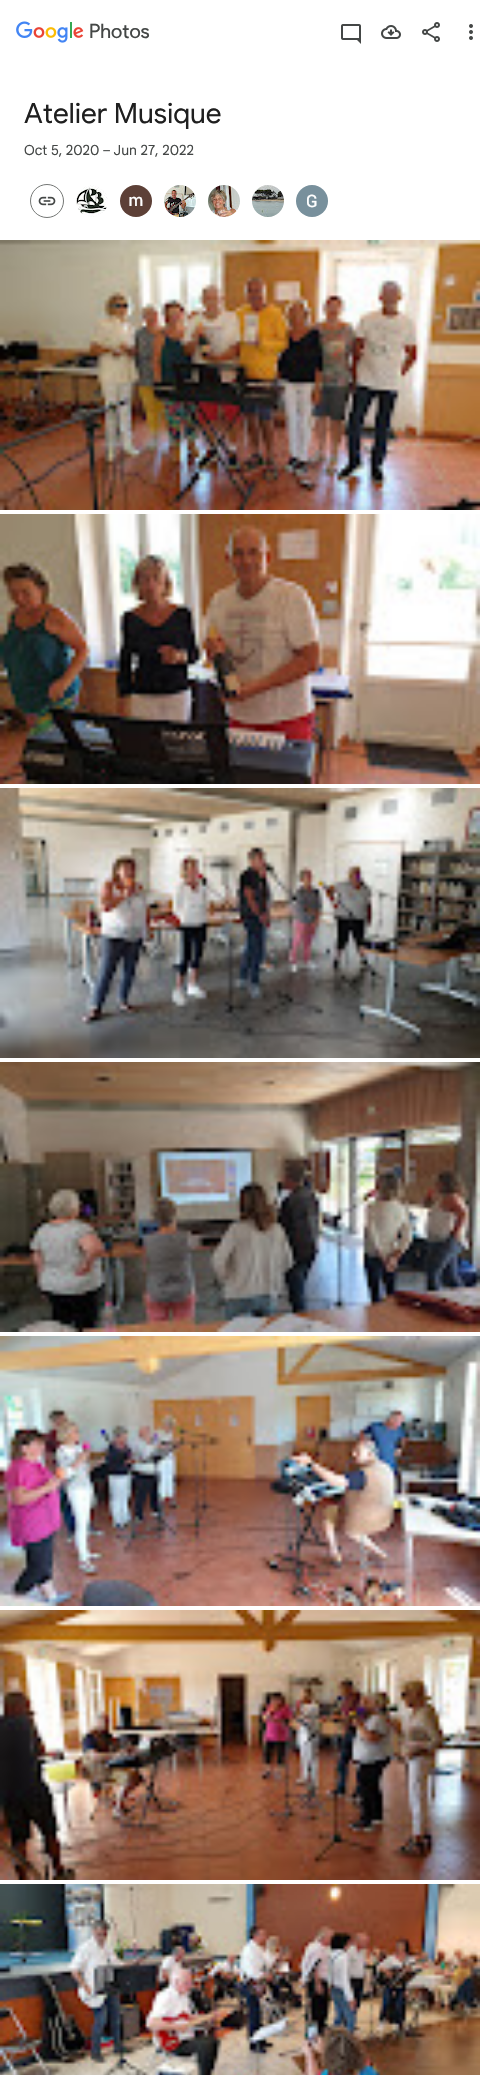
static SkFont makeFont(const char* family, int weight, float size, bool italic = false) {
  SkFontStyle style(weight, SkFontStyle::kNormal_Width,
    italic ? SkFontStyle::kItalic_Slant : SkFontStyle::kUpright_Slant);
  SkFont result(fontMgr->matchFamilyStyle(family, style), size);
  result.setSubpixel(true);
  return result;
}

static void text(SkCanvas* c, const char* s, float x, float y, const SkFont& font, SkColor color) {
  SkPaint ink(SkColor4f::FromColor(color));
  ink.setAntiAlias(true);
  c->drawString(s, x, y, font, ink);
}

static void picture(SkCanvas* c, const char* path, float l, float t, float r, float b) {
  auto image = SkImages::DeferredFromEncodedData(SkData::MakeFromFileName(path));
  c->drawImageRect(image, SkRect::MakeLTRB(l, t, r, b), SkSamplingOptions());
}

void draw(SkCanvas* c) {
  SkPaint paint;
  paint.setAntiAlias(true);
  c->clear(0xffffffff);
  picture(c, "img_01.png", 16, 21, 84, 43);
  SkFont face1 = makeFont("Product Sans", 400, 20);
  text(c, "Photos", 89, 38, face1, 0xff444746);
  picture(c, "img_02.png", 341, 24, 361, 44);
  picture(c, "img_03.png", 381, 25, 401, 39);
  picture(c, "img_04.png", 422, 22, 440, 42);
  picture(c, "img_05.png", 469, 24, 473, 40);
  SkFont face2 = makeFont("Google Sans", 400, 28);
  text(c, "Atelier Musique", 24, 123, face2, 0xff1f1f1f);
  SkFont face3 = makeFont("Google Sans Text", 400, 14);
  text(c, "Oct 5, 2020 – Jun 27, 2022", 24, 155, face3, 0xff444746);
  paint.setStyle(SkPaint::kStroke_Style);
  paint.setStrokeWidth(1);
  paint.setColor(0xff747775);
  c->drawCircle(47, 201, 16.5f, paint);
  picture(c, "img_06.png", 38, 196, 56, 206);
  picture(c, "img_07.png", 76, 185, 108, 217);
  picture(c, "img_08.png", 120, 185, 152, 217);
  picture(c, "img_09.png", 164, 185, 196, 217);
  picture(c, "img_10.png", 208, 185, 240, 217);
  picture(c, "img_11.png", 252, 185, 284, 217);
  picture(c, "img_12.png", 296, 185, 328, 217);
  picture(c, "img_13.png", 0, 240, 480, 510);
  picture(c, "img_14.png", 0, 514, 480, 784);
  picture(c, "img_15.png", 0, 788, 480, 1058);
  picture(c, "img_16.png", 0, 1062, 480, 1332);
  picture(c, "img_17.png", 0, 1336, 480, 1606);
  picture(c, "img_18.png", 0, 1610, 480, 1880);
  picture(c, "img_19.png", 0, 1884, 480, 2075);
}
